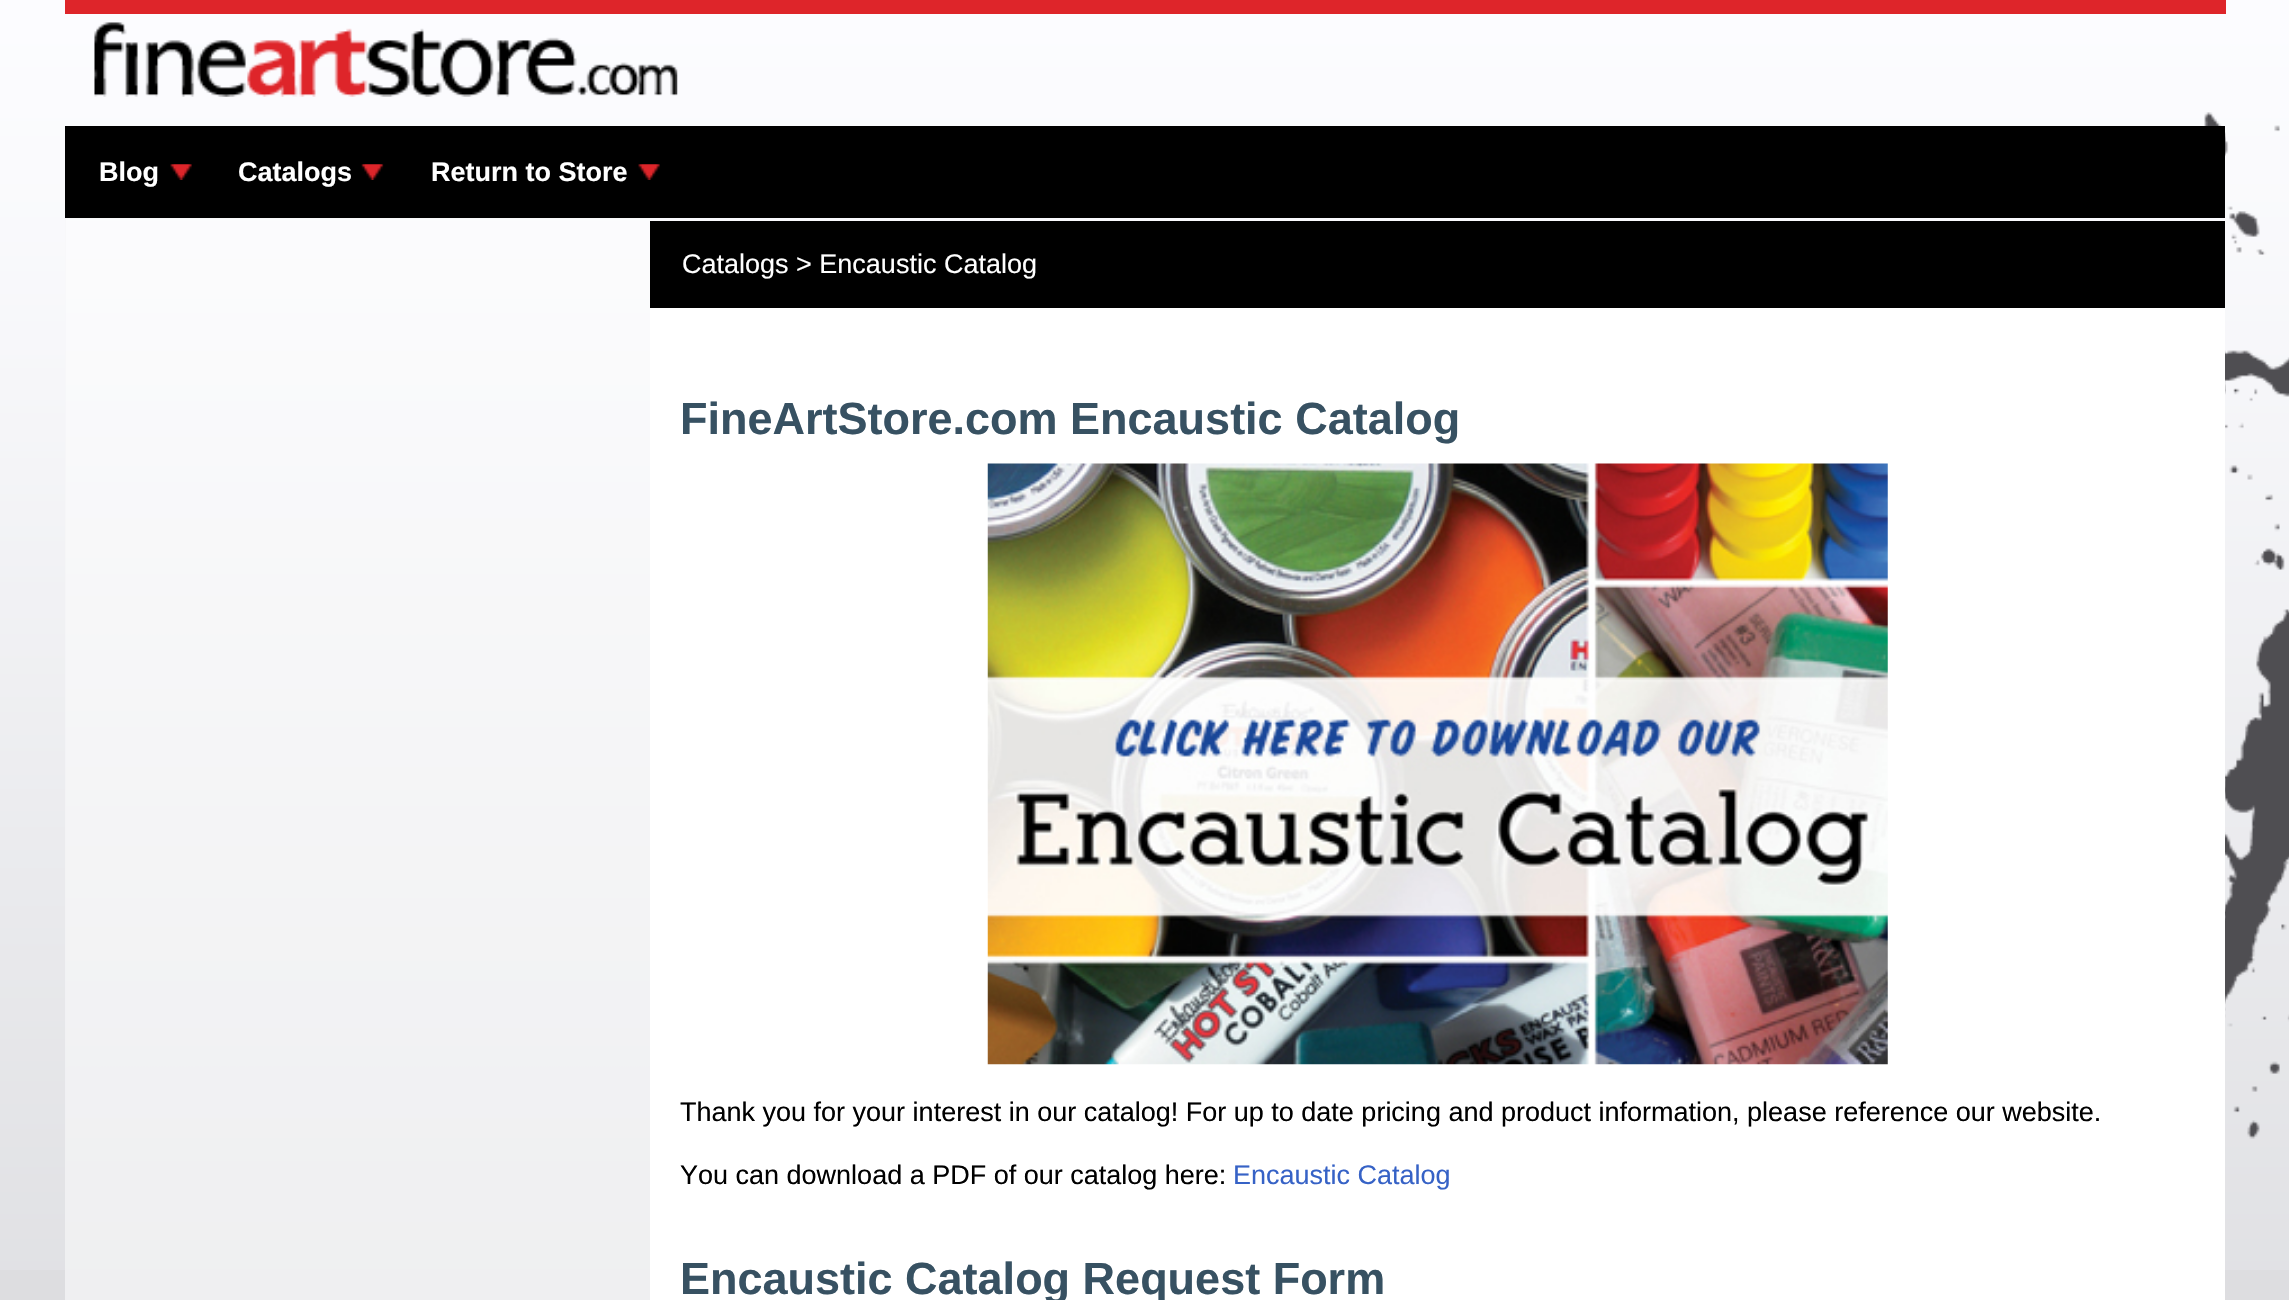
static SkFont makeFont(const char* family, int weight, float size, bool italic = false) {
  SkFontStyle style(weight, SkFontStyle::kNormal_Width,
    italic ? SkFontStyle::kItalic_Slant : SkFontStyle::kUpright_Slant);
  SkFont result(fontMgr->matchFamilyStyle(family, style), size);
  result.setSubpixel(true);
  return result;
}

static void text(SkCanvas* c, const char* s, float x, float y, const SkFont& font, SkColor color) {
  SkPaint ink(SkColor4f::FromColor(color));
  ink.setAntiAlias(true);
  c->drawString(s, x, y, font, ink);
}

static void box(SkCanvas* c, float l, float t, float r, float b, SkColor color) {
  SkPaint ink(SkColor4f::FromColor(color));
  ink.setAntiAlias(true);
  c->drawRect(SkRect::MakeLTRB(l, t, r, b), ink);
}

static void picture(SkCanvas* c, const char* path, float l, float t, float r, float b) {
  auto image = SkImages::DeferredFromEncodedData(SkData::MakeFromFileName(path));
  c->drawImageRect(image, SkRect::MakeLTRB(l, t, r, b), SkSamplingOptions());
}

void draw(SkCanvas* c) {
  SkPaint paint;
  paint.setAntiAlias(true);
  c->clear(0xffdddde0);
  picture(c, "img_01.png", 0, 0, 2289, 1270);
  picture(c, "img_02.png", 2204, 112, 2289, 1139);
  box(c, 65, 0, 2226, 14, 0xffde252a);
  picture(c, "img_03.png", 94, 22, 678, 97);
  box(c, 65, 126, 2225, 218, 0xff000000);
  picture(c, "img_04.png", 170, 164, 192, 180);
  SkFont face1 = makeFont("Liberation Sans", 700, 27);
  text(c, "Blog", 99, 181, face1, 0xffffffff);
  picture(c, "img_05.png", 361, 164, 384, 180);
  text(c, "Catalogs", 238, 181, face1, 0xffffffff);
  picture(c, "img_04.png", 638, 164, 660, 180);
  text(c, "Return to Store", 431, 181, face1, 0xffffffff);
  box(c, 65, 218, 650, 1300, 0xffeeeef0);
  picture(c, "img_06.png", 65, 218, 651, 1300);
  box(c, 650, 221, 2225, 308, 0xff000000);
  SkFont face2 = makeFont("Liberation Sans", 400, 27);
  text(c, "Catalogs > Encaustic Catalog", 682, 273, face2, 0xffffffff);
  box(c, 650, 308, 2225, 1300, 0xffffffff);
  SkFont face3 = makeFont("Liberation Sans", 700, 45);
  text(c, "FineArtStore.com Encaustic Catalog", 680, 434, face3, 0xff375162);
  picture(c, "img_07.png", 987, 463, 1888, 1065);
  text(c, "Thank you for your interest in our catalog! For up to date pricing and product information, please reference our website.", 680, 1121, face2, 0xff000000);
  text(c, "You can download a PDF of our catalog here:", 680, 1184, face2, 0xff000000);
  text(c, "Encaustic Catalog", 1233, 1184, face2, 0xff3662c6);
  text(c, "Encaustic Catalog Request Form", 680, 1294, face3, 0xff375162);
}
